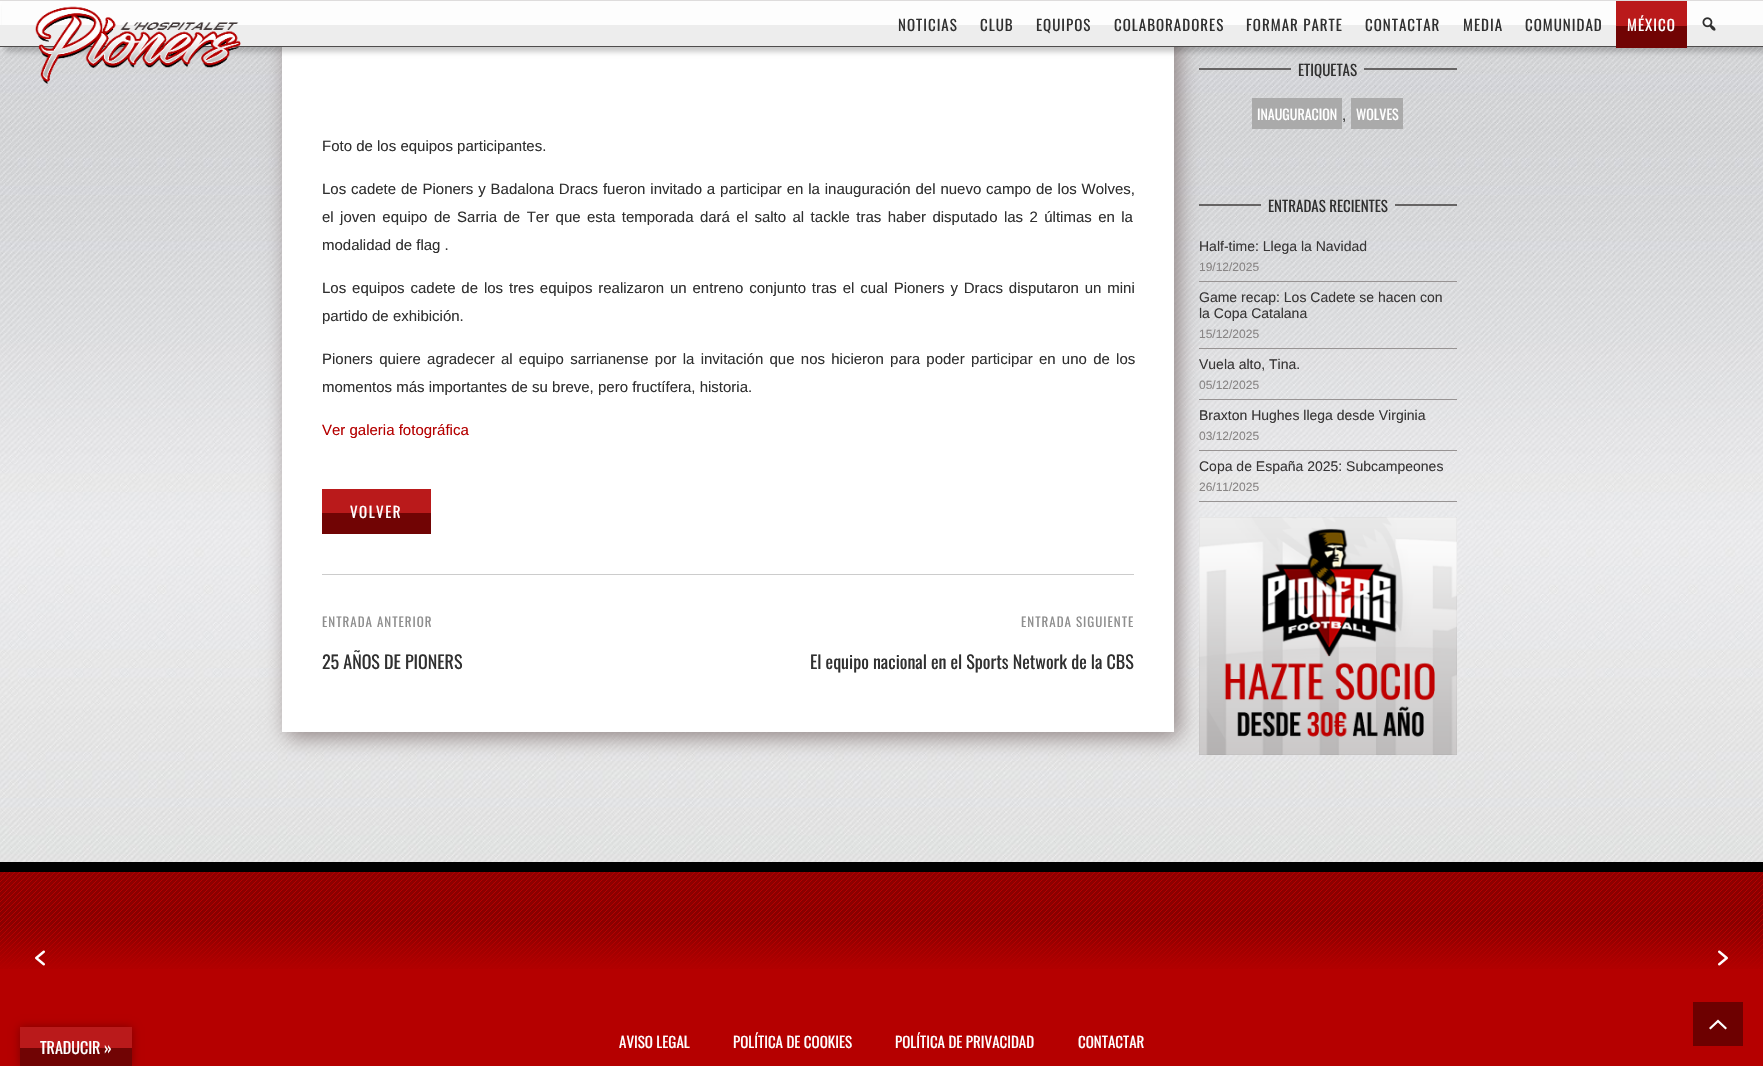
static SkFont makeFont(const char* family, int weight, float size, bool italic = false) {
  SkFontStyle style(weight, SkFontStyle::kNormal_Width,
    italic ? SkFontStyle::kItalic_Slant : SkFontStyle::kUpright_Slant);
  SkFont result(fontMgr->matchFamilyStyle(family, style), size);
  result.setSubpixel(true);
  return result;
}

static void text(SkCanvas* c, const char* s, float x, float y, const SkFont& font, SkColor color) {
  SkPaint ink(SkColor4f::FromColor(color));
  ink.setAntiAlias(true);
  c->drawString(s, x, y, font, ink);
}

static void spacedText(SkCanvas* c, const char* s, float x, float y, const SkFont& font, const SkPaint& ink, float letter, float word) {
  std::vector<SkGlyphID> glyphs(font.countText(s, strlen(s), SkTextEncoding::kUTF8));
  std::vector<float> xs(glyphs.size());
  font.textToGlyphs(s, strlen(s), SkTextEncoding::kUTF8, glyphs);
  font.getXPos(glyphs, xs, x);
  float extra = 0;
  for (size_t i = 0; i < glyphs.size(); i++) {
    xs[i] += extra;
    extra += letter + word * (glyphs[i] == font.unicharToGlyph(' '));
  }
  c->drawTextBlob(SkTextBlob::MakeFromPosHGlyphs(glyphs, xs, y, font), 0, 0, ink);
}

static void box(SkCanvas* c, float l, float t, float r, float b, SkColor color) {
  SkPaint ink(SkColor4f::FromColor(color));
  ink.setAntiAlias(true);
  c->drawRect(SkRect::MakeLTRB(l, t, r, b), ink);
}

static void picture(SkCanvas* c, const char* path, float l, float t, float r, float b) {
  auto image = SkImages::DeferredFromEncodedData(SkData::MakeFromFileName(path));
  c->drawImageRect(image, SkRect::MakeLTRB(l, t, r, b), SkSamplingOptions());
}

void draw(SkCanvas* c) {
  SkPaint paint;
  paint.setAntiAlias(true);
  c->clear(0xffffffff);
  picture(c, "img_01.png", 0, 47, 1763, 862);
  paint.setColor(0xff918585);
  paint.setMaskFilter(SkMaskFilter::MakeBlur(kNormal_SkBlurStyle, 10));
  c->drawRect(SkRect::MakeLTRB(287, -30, 1179, 737), paint);
  paint.setMaskFilter(nullptr);
  box(c, 282, 47, 1174, 732, 0xffffffff);
  paint.setColor(0x33000000);
  paint.setMaskFilter(SkMaskFilter::MakeBlur(kNormal_SkBlurStyle, 2.5f));
  c->drawRect(SkRect::MakeLTRB(5, 5, 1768, 52), paint);
  paint.setMaskFilter(nullptr);
  box(c, 2, 1, 1763, 25, 0xfffdfdfd);
  box(c, 0, 25, 1763, 46, 0xffededed);
  box(c, 0, 0, 1763, 1, 0xffdedcdc);
  box(c, 0, 46, 1763, 47, 0xff4f4d4d);
  picture(c, "img_02.png", 35, 6, 241, 84);
  SkFont face1 = makeFont("Oswald", 400, 15);
  paint.setColor(0xff303030);
  spacedText(c, "NOTICIAS", 898, 31, face1, paint, 1, 0);
  spacedText(c, "CLUB", 980, 31, face1, paint, 1, 0);
  spacedText(c, "EQUIPOS", 1036, 31, face1, paint, 1, 0);
  spacedText(c, "COLABORADORES", 1114, 31, face1, paint, 1, 0);
  spacedText(c, "FORMAR PARTE", 1246, 31, face1, paint, 1, 0);
  spacedText(c, "CONTACTAR", 1365, 31, face1, paint, 1, 0);
  spacedText(c, "MEDIA", 1463, 31, face1, paint, 1, 0);
  spacedText(c, "COMUNIDAD", 1525, 31, face1, paint, 1, 0);
  box(c, 1616, 1, 1687, 26, 0xffba1a1b);
  box(c, 1616, 26, 1687, 48, 0xff710404);
  paint.setColor(0xffffffff);
  spacedText(c, "MÉXICO", 1627, 31, face1, paint, 1, 0);
  picture(c, "img_03.png", 1702, 17, 1716, 31);
  SkFont face2 = makeFont("Liberation Sans", 400, 15);
  text(c, "Foto de los equipos participantes.", 322, 151, face2, 0xff303030);
  paint.setColor(0xff303030);
  spacedText(c, "Los cadete de Pioners y Badalona Dracs fueron invitado a participar en la inauguración del nuevo campo de los Wolves,", 322, 194, face2, paint, 0, 0.7f);
  spacedText(c, "el joven equipo", 322, 222, face2, paint, 0, 2.25f);
  spacedText(c, "de Sarria de Ter que esta temporada dará el salto al tackle tras haber disputado las 2 últimas en la", 434, 222, face2, paint, 0, 2.25f);
  text(c, "modalidad de flag .", 322, 250, face2, 0xff303030);
  spacedText(c, "Los equipos cadete de los tres equipos realizaron un entreno conjunto tras el cual Pioners y Dracs disputaron un mini", 322, 293, face2, paint, 0, 1.7f);
  text(c, "partido de exhibición.", 322, 321, face2, 0xff303030);
  spacedText(c, "Pioners quiere agradecer al equipo sarrianense por la invitación que nos hicieron para poder participar en uno de los", 322, 364, face2, paint, 0, 2.1f);
  text(c, "momentos más importantes de su breve, pero fructífera, historia.", 322, 392, face2, 0xff303030);
  text(c, "Ver galeria fotográfica", 322, 435, face2, 0xffb50000);
  box(c, 322, 489, 431, 513, 0xffba1a1b);
  box(c, 322, 513, 431, 534, 0xff710404);
  paint.setColor(0xffffffff);
  spacedText(c, "VOLVER", 350, 518, face1, paint, 1.5f, 0);
  box(c, 322, 574, 1134, 575, 0xffcccccc);
  SkFont face3 = makeFont("Oswald", 400, 13);
  paint.setColor(0xff8e8e8e);
  spacedText(c, "ENTRADA ANTERIOR", 322, 627, face3, paint, 1, 0);
  SkFont face4 = makeFont("Oswald", 400, 18);
  text(c, "25 AÑOS DE PIONERS", 322, 669, face4, 0xff303030);
  spacedText(c, "ENTRADA SIGUIENTE", 1021, 627, face3, paint, 1, 0);
  text(c, "El equipo nacional en el Sports Network de la CBS", 810, 669, face4, 0xff303030);
  box(c, 1199, 68, 1291, 70, 0xff666464);
  text(c, "ETIQUETAS", 1298, 76, face1, 0xff303030);
  box(c, 1364, 68, 1457, 70, 0xff666464);
  box(c, 1252, 98, 1342, 129, 0xffaaaaaa);
  SkFont face5 = makeFont("Oswald", 400, 14);
  text(c, "INAUGURACION", 1257, 120, face5, 0xffffffff);
  text(c, ",", 1342, 120, face2, 0xff303030);
  box(c, 1351, 98, 1403, 129, 0xffaaaaaa);
  text(c, "WOLVES", 1356, 120, face5, 0xffffffff);
  box(c, 1199, 204, 1261, 206, 0xff666464);
  text(c, "ENTRADAS RECIENTES", 1268, 212, face1, 0xff303030);
  box(c, 1395, 204, 1457, 206, 0xff666464);
  box(c, 1199, 281, 1457, 282, 0xff979393);
  SkFont face6 = makeFont("Liberation Sans", 400, 14);
  text(c, "Half-time: Llega la Navidad", 1199, 251, face6, 0xff383636);
  SkFont face7 = makeFont("Liberation Sans", 400, 12);
  text(c, "19/12/2025", 1199, 271, face7, 0xff888585);
  box(c, 1199, 348, 1457, 349, 0xff979393);
  text(c, "Game recap: Los Cadete se hacen con", 1199, 302, face6, 0xff383636);
  text(c, "la Copa Catalana", 1199, 318, face6, 0xff383636);
  text(c, "15/12/2025", 1199, 338, face7, 0xff888585);
  box(c, 1199, 399, 1457, 400, 0xff979393);
  text(c, "Vuela alto, Tina.", 1199, 369, face6, 0xff383636);
  text(c, "05/12/2025", 1199, 389, face7, 0xff888585);
  box(c, 1199, 450, 1457, 451, 0xff979393);
  text(c, "Braxton Hughes llega desde Virginia", 1199, 420, face6, 0xff383636);
  text(c, "03/12/2025", 1199, 440, face7, 0xff888585);
  box(c, 1199, 501, 1457, 502, 0xff979393);
  text(c, "Copa de España 2025: Subcampeones", 1199, 471, face6, 0xff383636);
  text(c, "26/11/2025", 1199, 491, face7, 0xff888585);
  picture(c, "img_04.png", 1199, 517, 1457, 755);
  box(c, 0, 969, 1763, 1066, 0xffb50000);
  picture(c, "img_05.png", 0, 872, 1763, 969);
  box(c, 0, 862, 1763, 872, 0xff000000);
  picture(c, "img_06.png", 35, 950, 45, 966);
  picture(c, "img_07.png", 1718, 950, 1728, 966);
  text(c, "AVISO LEGAL", 619, 1048, face1, 0xffffffff);
  text(c, "POLÍTICA DE COOKIES", 733, 1048, face1, 0xffffffff);
  text(c, "POLÍTICA DE PRIVACIDAD", 895, 1048, face1, 0xffffffff);
  text(c, "CONTACTAR", 1078, 1048, face1, 0xffffffff);
  box(c, 1693, 1002, 1743, 1046, 0xff6d0000);
  paint.setColor(0xffffffff);
  c->drawPath(SkPathBuilder().moveTo(1725.5f, 1029.5f).lineTo(1718, 1022.5f).lineTo(1710.5f, 1029.5f).lineTo(1709, 1028).lineTo(1718, 1019.5f).lineTo(1727, 1028).close().detach(), paint);
  paint.setColor(0x4d000000);
  paint.setMaskFilter(SkMaskFilter::MakeBlur(kNormal_SkBlurStyle, 4.5f));
  c->drawRect(SkRect::MakeLTRB(20, 1027, 132, 1066), paint);
  paint.setMaskFilter(nullptr);
  box(c, 20, 1027, 132, 1048, 0xffba1a1b);
  box(c, 20, 1048, 132, 1066, 0xff710404);
  SkFont face8 = makeFont("Oswald", 400, 16);
  text(c, "TRADUCIR »", 40, 1054, face8, 0xffffffff);
}
